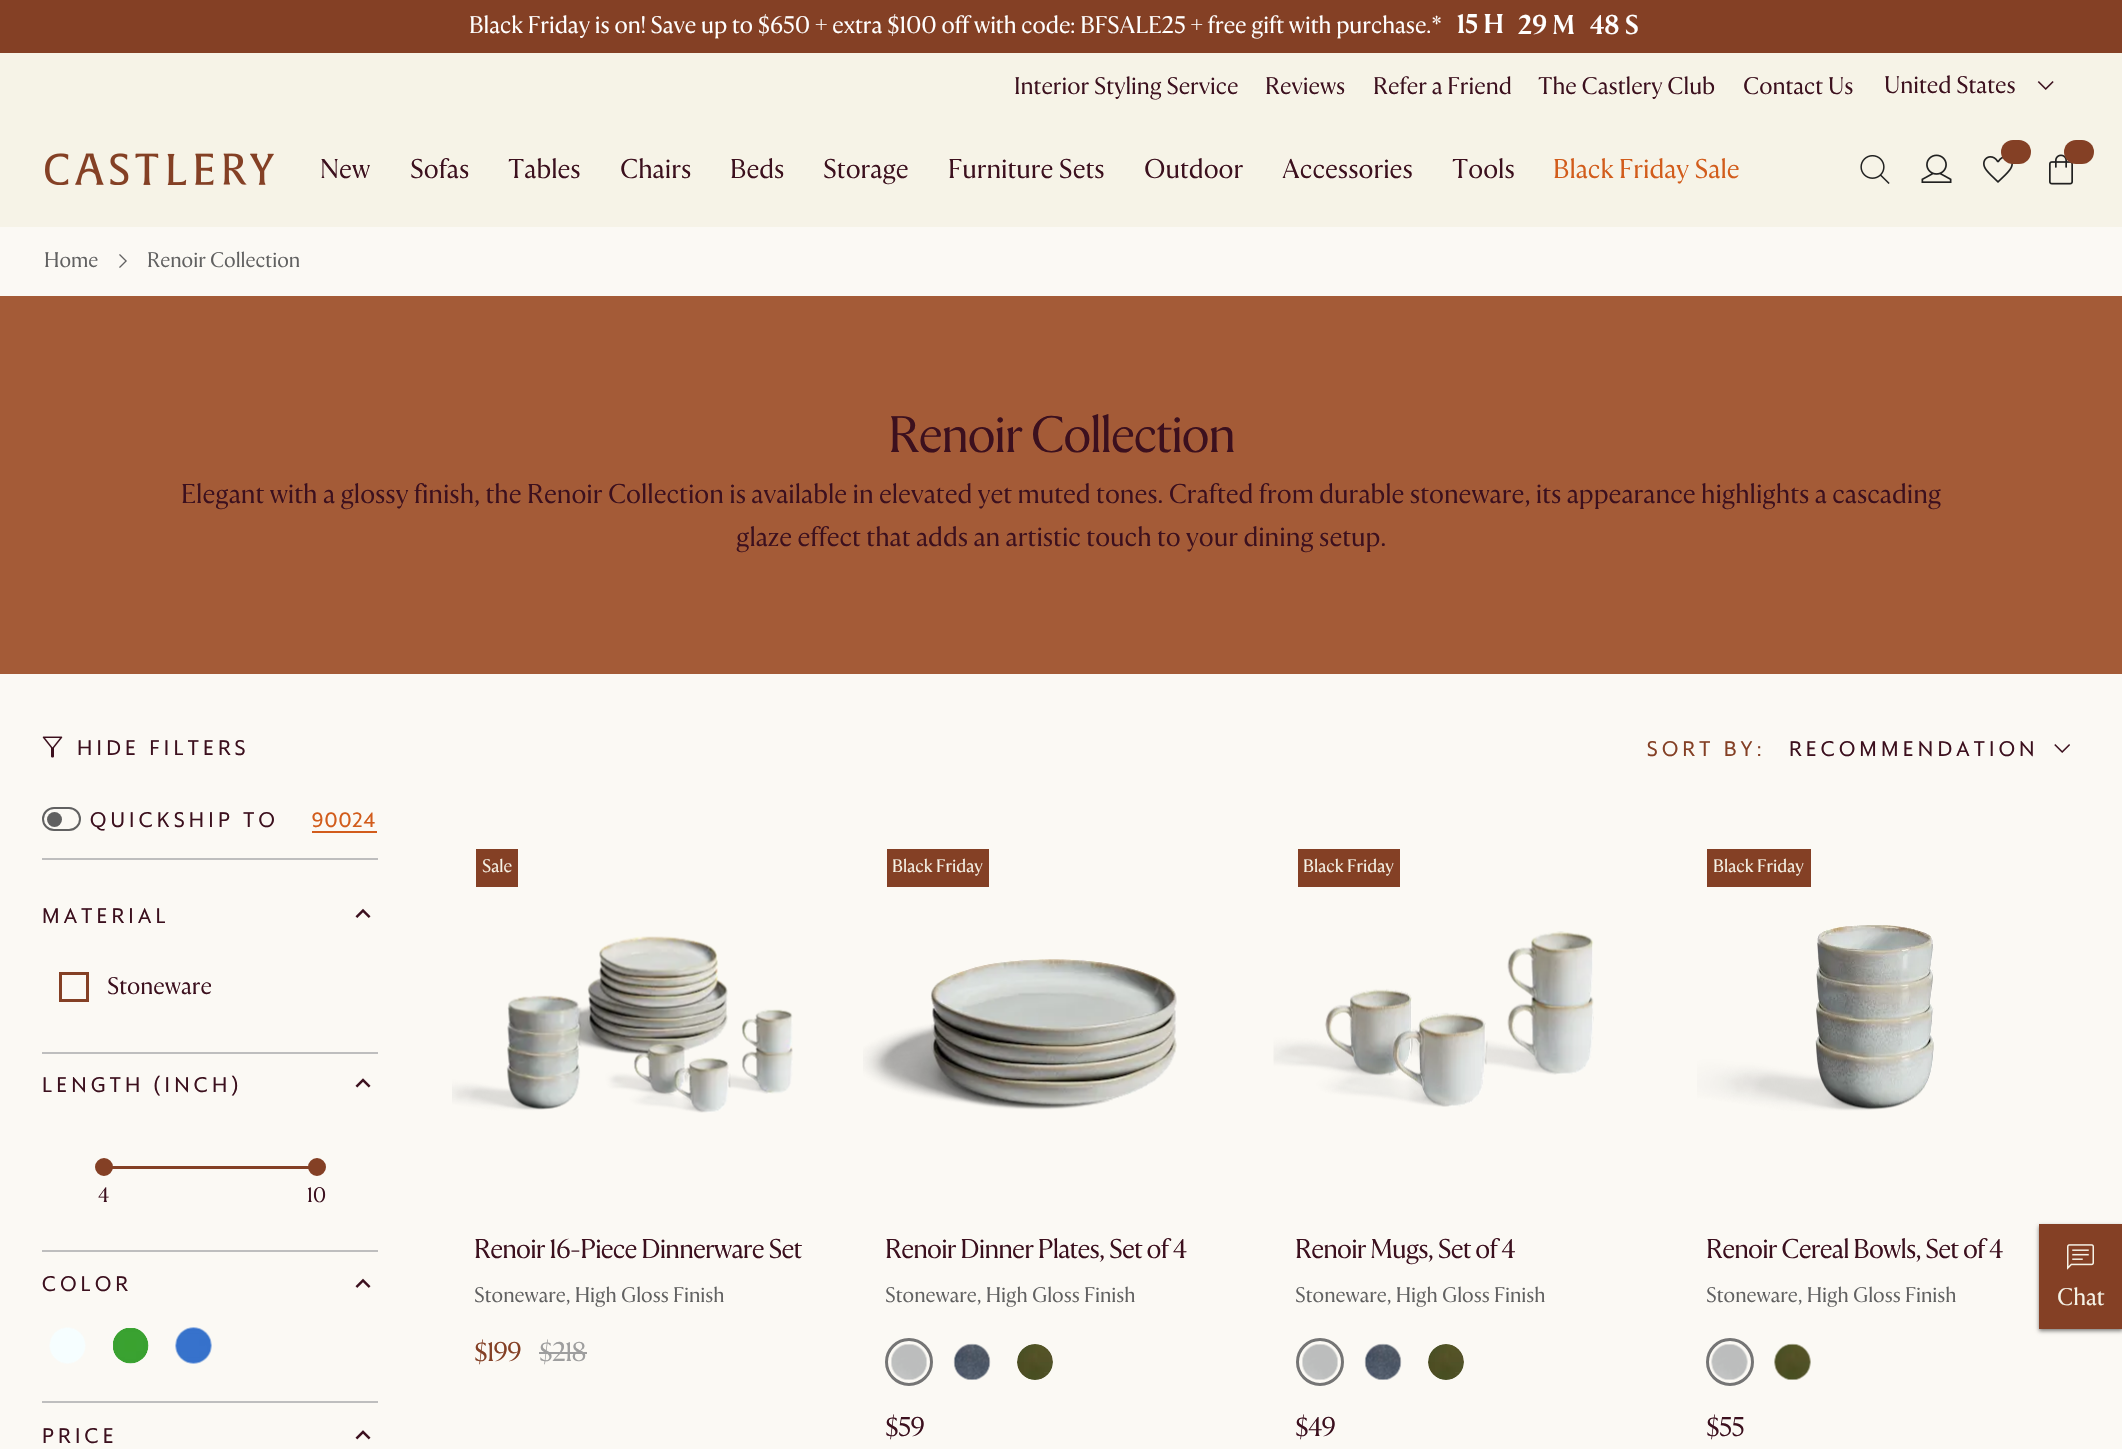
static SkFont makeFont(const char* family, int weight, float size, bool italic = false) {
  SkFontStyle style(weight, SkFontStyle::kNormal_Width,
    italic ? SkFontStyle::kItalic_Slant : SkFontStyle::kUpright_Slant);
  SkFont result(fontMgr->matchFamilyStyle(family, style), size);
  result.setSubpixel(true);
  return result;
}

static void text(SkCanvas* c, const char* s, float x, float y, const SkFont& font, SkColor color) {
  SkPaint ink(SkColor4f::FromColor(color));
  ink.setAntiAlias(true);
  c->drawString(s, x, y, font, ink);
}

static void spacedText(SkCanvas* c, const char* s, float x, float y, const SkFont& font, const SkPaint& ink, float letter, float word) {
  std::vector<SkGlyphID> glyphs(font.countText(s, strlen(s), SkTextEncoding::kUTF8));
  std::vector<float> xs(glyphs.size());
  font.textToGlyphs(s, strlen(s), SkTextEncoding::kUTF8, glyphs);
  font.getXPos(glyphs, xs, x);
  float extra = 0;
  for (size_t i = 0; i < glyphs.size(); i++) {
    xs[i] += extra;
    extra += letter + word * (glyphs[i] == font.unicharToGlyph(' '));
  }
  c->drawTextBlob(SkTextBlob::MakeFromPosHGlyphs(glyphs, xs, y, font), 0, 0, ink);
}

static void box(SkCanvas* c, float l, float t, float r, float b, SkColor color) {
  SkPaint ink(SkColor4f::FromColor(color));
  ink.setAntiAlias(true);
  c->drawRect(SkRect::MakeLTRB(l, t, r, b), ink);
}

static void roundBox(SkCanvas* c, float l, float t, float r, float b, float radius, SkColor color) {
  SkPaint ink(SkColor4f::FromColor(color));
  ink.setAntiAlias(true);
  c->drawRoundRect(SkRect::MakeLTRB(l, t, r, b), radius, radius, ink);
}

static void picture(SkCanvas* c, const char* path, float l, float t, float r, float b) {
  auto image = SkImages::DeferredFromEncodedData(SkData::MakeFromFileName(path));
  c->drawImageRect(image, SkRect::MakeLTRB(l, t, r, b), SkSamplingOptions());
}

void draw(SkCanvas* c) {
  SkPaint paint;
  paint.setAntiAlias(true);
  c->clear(0xfffbf9f4);
  box(c, 0, 0, 2122, 53, 0xff844025);
  SkFont face1 = makeFont("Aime", 400, 24);
  text(c, "Black Friday is on! Save up to $650 + extra $100 off with code: BFSALE25 + free gift with purchase.*", 469, 33, face1, 0xffffffff);
  SkFont face2 = makeFont("Aime", 700, 27);
  text(c, "15 H", 1457, 33, face2, 0xffffffff);
  text(c, "29 M", 1518, 34, face2, 0xffffffff);
  text(c, "48 S", 1590, 34, face2, 0xffffffff);
  box(c, 0, 53, 2122, 227, 0xfff6f3e7);
  text(c, "Interior Styling Service", 1014, 94, face1, 0xff3c101e);
  text(c, "Reviews", 1265, 94, face1, 0xff3c101e);
  text(c, "Refer a Friend", 1373, 94, face1, 0xff3c101e);
  text(c, "The Castlery Club", 1538, 94, face1, 0xff3c101e);
  text(c, "Contact Us", 1743, 94, face1, 0xff3c101e);
  text(c, "United States", 1884, 93, face1, 0xff3c101e);
  picture(c, "img_01.png", 2037, 81, 2054, 90);
  picture(c, "img_02.png", 45, 153, 274, 185);
  SkFont face3 = makeFont("Aime", 400, 27);
  text(c, "New", 320, 178, face3, 0xff3c101e);
  text(c, "Sofas", 410, 178, face3, 0xff3c101e);
  text(c, "Tables", 508, 178, face3, 0xff3c101e);
  text(c, "Chairs", 620, 178, face3, 0xff3c101e);
  text(c, "Beds", 730, 178, face3, 0xff3c101e);
  text(c, "Storage", 823, 178, face3, 0xff3c101e);
  text(c, "Furniture Sets", 948, 178, face3, 0xff3c101e);
  text(c, "Outdoor", 1144, 178, face3, 0xff3c101e);
  text(c, "Accessories", 1282, 178, face3, 0xff3c101e);
  text(c, "Tools", 1452, 178, face3, 0xff3c101e);
  text(c, "Black Friday Sale", 1553, 178, face3, 0xffd25c1b);
  picture(c, "img_03.png", 1860, 155, 1890, 184);
  picture(c, "img_04.png", 1921, 154, 1952, 183);
  picture(c, "img_05.png", 1983, 156, 2013, 183);
  roundBox(c, 2001, 140, 2031, 164, 12, 0xff844025);
  picture(c, "img_06.png", 2049, 154, 2073, 185);
  roundBox(c, 2064, 140, 2094, 164, 12, 0xff844025);
  SkFont face4 = makeFont("Aime", 400, 21);
  text(c, "Home", 44, 267, face4, 0xff616161);
  picture(c, "img_07.png", 119, 254, 127, 268);
  text(c, "Renoir Collection", 147, 267, face4, 0xff616161);
  box(c, 0, 296, 2122, 674, 0xffa45b37);
  SkFont face5 = makeFont("Aime", 400, 51);
  paint.setColor(0xff3c101e);
  spacedText(c, "Renoir Collection", 888, 452, face5, paint, -1.5f, 0);
  text(c, "Elegant with a glossy finish, the Renoir Collection is available in elevated yet muted tones. Crafted from durable stoneware, its appearance highlights a cascading", 181, 503, face3, 0xff3c101e);
  text(c, "glaze effect that adds an artistic touch to your dining setup.", 736, 546, face3, 0xff3c101e);
  picture(c, "img_08.png", 42, 736, 63, 758);
  SkFont face6 = makeFont("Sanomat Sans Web", 400, 21);
  spacedText(c, "HIDE FILTERS", 77, 755, face6, paint, 4.25f, 0);
  paint.setColor(0xff844025);
  spacedText(c, "SORT BY:", 1647, 756, face6, paint, 4.25f, 0);
  paint.setColor(0xff3c101e);
  spacedText(c, "RECOMMENDATION", 1789, 756, face6, paint, 4.25f, 0);
  picture(c, "img_09.png", 2054, 744, 2070, 753);
  paint.setStyle(SkPaint::kStroke_Style);
  paint.setStrokeWidth(2);
  paint.setColor(0xff616161);
  c->drawRoundRect(SkRect::MakeLTRB(43, 808, 80, 830), 11, 11, paint);
  paint.setStyle(SkPaint::kFill_Style);
  c->drawCircle(54.5f, 819.5f, 7.5f, paint);
  paint.setColor(0xff3c101e);
  spacedText(c, "QUICKSHIP TO", 90, 827, face6, paint, 4.25f, 0);
  paint.setColor(0xffd25c1b);
  spacedText(c, "90024", 312, 827, face6, paint, 1.5f, 0);
  box(c, 312, 831, 377, 833, 0xffd25c1b);
  box(c, 42, 858, 378, 860, 0xffbebebe);
  box(c, 42, 1052, 378, 1054, 0xffbebebe);
  paint.setColor(0xff3c101e);
  spacedText(c, "MATERIAL", 42, 923, face6, paint, 4.25f, 0);
  picture(c, "img_10.png", 355, 908, 371, 918);
  paint.setStyle(SkPaint::kStroke_Style);
  paint.setStrokeWidth(3);
  paint.setColor(0xff844025);
  c->drawRect(SkRect::MakeLTRB(60.5f, 973.5f, 87.5f, 1000.5f), paint);
  text(c, "Stoneware", 107, 994, face1, 0xff3c101e);
  box(c, 42, 1250, 378, 1252, 0xffbebebe);
  paint.setStyle(SkPaint::kFill_Style);
  paint.setColor(0xff3c101e);
  spacedText(c, "LENGTH (INCH)", 42, 1092, face6, paint, 4.25f, 0);
  picture(c, "img_11.png", 355, 1078, 371, 1088);
  box(c, 104, 1166, 317, 1169, 0xff844025);
  paint.setColor(0xff844025);
  c->drawCircle(104, 1167, 7.5f, paint);
  paint.setStyle(SkPaint::kStroke_Style);
  c->drawCircle(104, 1167, 7.5f, paint);
  paint.setStyle(SkPaint::kFill_Style);
  c->drawCircle(317, 1167, 7.5f, paint);
  paint.setStyle(SkPaint::kStroke_Style);
  c->drawCircle(317, 1167, 7.5f, paint);
  text(c, "4", 98, 1202, face4, 0xff3c101e);
  text(c, "10", 307, 1202, face4, 0xff3c101e);
  box(c, 42, 1401, 378, 1403, 0xffbebebe);
  paint.setStyle(SkPaint::kFill_Style);
  paint.setColor(0xff3c101e);
  spacedText(c, "COLOR", 42, 1291, face6, paint, 4.25f, 0);
  picture(c, "img_12.png", 355, 1278, 371, 1288);
  picture(c, "img_13.png", 49, 1327, 86, 1364);
  picture(c, "img_14.png", 113, 1328, 149, 1364);
  picture(c, "img_15.png", 175, 1327, 212, 1364);
  spacedText(c, "PRICE", 42, 1443, face6, paint, 4.25f, 0);
  picture(c, "img_16.png", 355, 1430, 371, 1440);
  box(c, 476, 849, 518, 887, 0xff844025);
  SkFont face7 = makeFont("Aime", 400, 18);
  text(c, "Sale", 482, 872, face7, 0xfff6f3e7);
  picture(c, "img_17.png", 452, 936, 793, 1113);
  spacedText(c, "Renoir 16-Piece Dinnerware Set", 474, 1258, face3, paint, -0.8f, 0);
  text(c, "Stoneware, High Gloss Finish", 474, 1302, face4, 0xff616161);
  paint.setColor(0xff844025);
  spacedText(c, "$199", 474, 1361, face3, paint, -0.8f, 0);
  paint.setColor(0xff9e9e9e);
  spacedText(c, "$218", 539, 1361, face3, paint, -0.8f, 0);
  box(c, 539, 1352, 587, 1354, 0xff9e9e9e);
  box(c, 887, 849, 989, 887, 0xff844025);
  text(c, "Black Friday", 892, 872, face7, 0xfff6f3e7);
  picture(c, "img_18.png", 863, 959, 1177, 1110);
  paint.setColor(0xff3c101e);
  spacedText(c, "Renoir Dinner Plates, Set of 4", 885, 1258, face3, paint, -0.8f, 0);
  text(c, "Stoneware, High Gloss Finish", 885, 1302, face4, 0xff616161);
  paint.setStyle(SkPaint::kStroke_Style);
  paint.setColor(0xff757575);
  c->drawCircle(909, 1362, 22.5f, paint);
  picture(c, "img_19.png", 891, 1344, 927, 1380);
  picture(c, "img_20.png", 953, 1343, 991, 1380);
  picture(c, "img_21.png", 1017, 1344, 1053, 1380);
  paint.setStyle(SkPaint::kFill_Style);
  paint.setColor(0xff3c101e);
  spacedText(c, "$59", 885, 1436, face3, paint, -0.8f, 0);
  box(c, 1298, 849, 1400, 887, 0xff844025);
  text(c, "Black Friday", 1303, 872, face7, 0xfff6f3e7);
  picture(c, "img_22.png", 1273, 931, 1594, 1107);
  spacedText(c, "Renoir Mugs, Set of 4", 1295, 1258, face3, paint, -0.8f, 0);
  text(c, "Stoneware, High Gloss Finish", 1295, 1302, face4, 0xff616161);
  paint.setStyle(SkPaint::kStroke_Style);
  paint.setColor(0xff757575);
  c->drawCircle(1320, 1362, 22.5f, paint);
  picture(c, "img_19.png", 1302, 1344, 1338, 1380);
  picture(c, "img_20.png", 1364, 1343, 1402, 1380);
  picture(c, "img_21.png", 1428, 1344, 1464, 1380);
  paint.setStyle(SkPaint::kFill_Style);
  paint.setColor(0xff3c101e);
  spacedText(c, "$49", 1295, 1436, face3, paint, -0.8f, 0);
  box(c, 1707, 849, 1811, 887, 0xff844025);
  text(c, "Black Friday", 1713, 872, face7, 0xfff6f3e7);
  picture(c, "img_23.png", 1697, 925, 1934, 1111);
  spacedText(c, "Renoir Cereal Bowls, Set of 4", 1706, 1258, face3, paint, -0.8f, 0);
  text(c, "Stoneware, High Gloss Finish", 1706, 1302, face4, 0xff616161);
  paint.setStyle(SkPaint::kStroke_Style);
  paint.setColor(0xff757575);
  c->drawCircle(1730, 1362, 22.5f, paint);
  picture(c, "img_24.png", 1711, 1344, 1748, 1380);
  picture(c, "img_25.png", 1774, 1343, 1811, 1380);
  paint.setStyle(SkPaint::kFill_Style);
  paint.setColor(0xff3c101e);
  spacedText(c, "$55", 1706, 1436, face3, paint, -0.8f, 0);
  paint.setColor(0x80000000);
  paint.setMaskFilter(SkMaskFilter::MakeBlur(kNormal_SkBlurStyle, 2));
  c->drawRect(SkRect::MakeLTRB(2039, 1226, 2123, 1331), paint);
  paint.setMaskFilter(nullptr);
  box(c, 2039, 1224, 2122, 1329, 0xff844025);
  picture(c, "img_26.png", 2067, 1244, 2094, 1270);
  text(c, "Chat", 2057, 1305, face1, 0xfff6f3e7);
}
